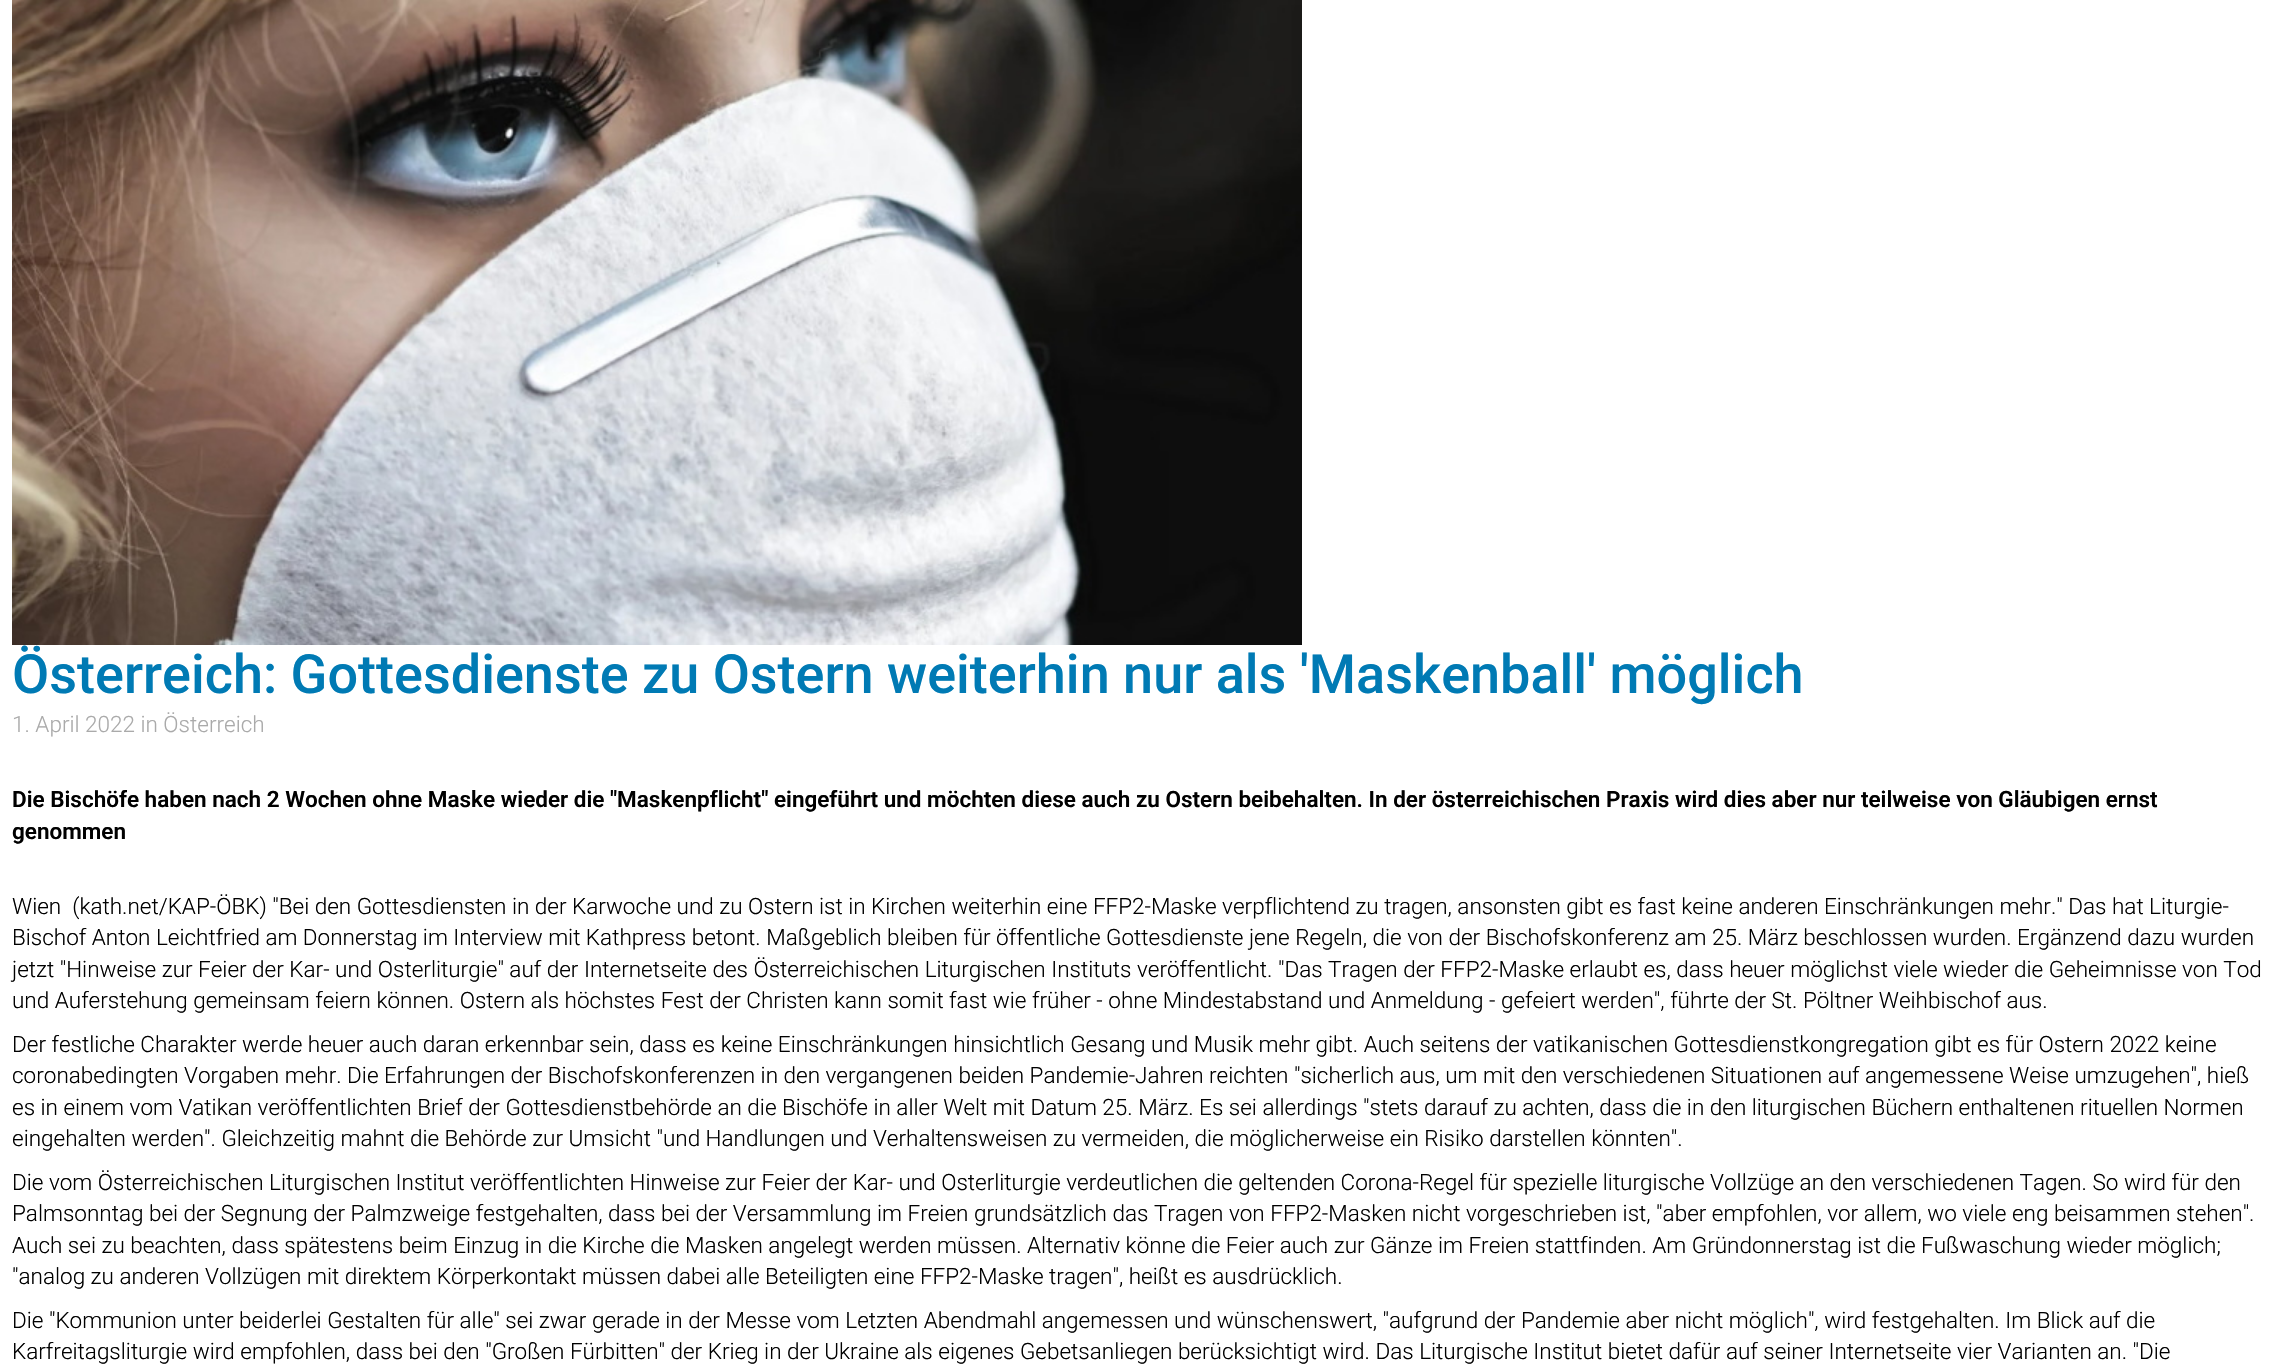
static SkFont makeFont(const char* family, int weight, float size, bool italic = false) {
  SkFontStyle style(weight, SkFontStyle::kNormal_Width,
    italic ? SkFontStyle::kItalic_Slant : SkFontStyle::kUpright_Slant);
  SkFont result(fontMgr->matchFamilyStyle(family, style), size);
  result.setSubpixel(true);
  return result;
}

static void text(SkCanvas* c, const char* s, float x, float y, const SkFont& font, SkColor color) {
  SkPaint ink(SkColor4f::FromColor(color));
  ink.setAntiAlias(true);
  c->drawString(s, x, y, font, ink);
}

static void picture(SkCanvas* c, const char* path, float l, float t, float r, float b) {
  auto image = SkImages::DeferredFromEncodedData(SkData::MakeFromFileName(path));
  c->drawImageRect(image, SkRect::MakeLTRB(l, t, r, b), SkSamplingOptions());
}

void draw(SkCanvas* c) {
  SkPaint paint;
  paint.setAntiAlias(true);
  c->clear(0xffffffff);
  picture(c, "img_01.png", 12, 0, 1302, 645);
  SkFont face1 = makeFont("Roboto", 500, 54);
  text(c, "Österreich: Gottesdienste zu Ostern weiterhin nur als 'Maskenball' möglich", 12, 693, face1, 0xff007ab4);
  SkFont face2 = makeFont("Roboto", 300, 22.5f);
  text(c, "1. April 2022 in Österreich", 12, 732, face2, 0xffaaaaaa);
  SkFont face3 = makeFont("Roboto", 600, 22.5f);
  text(c, "Die Bischöfe haben nach 2 Wochen ohne Maske wieder die \"Maskenpflicht\" eingeführt und möchten diese auch zu Ostern beibehalten. In der österreichischen Praxis wird dies aber nur teilweise von Gläubigen ernst", 12, 807, face3, 0xff000000);
  text(c, "genommen", 12, 839, face3, 0xff000000);
  text(c, "Wien  (kath.net/KAP-ÖBK) \"Bei den Gottesdiensten in der Karwoche und zu Ostern ist in Kirchen weiterhin eine FFP2-Maske verpflichtend zu tragen, ansonsten gibt es fast keine anderen Einschränkungen mehr.\" Das hat Liturgie-", 12, 914, face2, 0xff000000);
  text(c, "Bischof Anton Leichtfried am Donnerstag im Interview mit Kathpress betont. Maßgeblich bleiben für öffentliche Gottesdienste jene Regeln, die von der Bischofskonferenz am 25. März beschlossen wurden. Ergänzend dazu wurden", 12, 945, face2, 0xff000000);
  text(c, "jetzt \"Hinweise zur Feier der Kar- und Osterliturgie\" auf der Internetseite des Österreichischen Liturgischen Instituts veröffentlicht. \"Das Tragen der FFP2-Maske erlaubt es, dass heuer möglichst viele wieder die Geheimnisse von Tod", 12, 977, face2, 0xff000000);
  text(c, "und Auferstehung gemeinsam feiern können. Ostern als höchstes Fest der Christen kann somit fast wie früher - ohne Mindestabstand und Anmeldung - gefeiert werden\", führte der St. Pöltner Weihbischof aus.", 12, 1008, face2, 0xff000000);
  text(c, "Der festliche Charakter werde heuer auch daran erkennbar sein, dass es keine Einschränkungen hinsichtlich Gesang und Musik mehr gibt. Auch seitens der vatikanischen Gottesdienstkongregation gibt es für Ostern 2022 keine", 12, 1052, face2, 0xff000000);
  text(c, "coronabedingten Vorgaben mehr. Die Erfahrungen der Bischofskonferenzen in den vergangenen beiden Pandemie-Jahren reichten \"sicherlich aus, um mit den verschiedenen Situationen auf angemessene Weise umzugehen\", hieß", 12, 1083, face2, 0xff000000);
  text(c, "es in einem vom Vatikan veröffentlichten Brief der Gottesdienstbehörde an die Bischöfe in aller Welt mit Datum 25. März. Es sei allerdings \"stets darauf zu achten, dass die in den liturgischen Büchern enthaltenen rituellen Normen", 12, 1115, face2, 0xff000000);
  text(c, "eingehalten werden\". Gleichzeitig mahnt die Behörde zur Umsicht \"und Handlungen und Verhaltensweisen zu vermeiden, die möglicherweise ein Risiko darstellen könnten\".", 12, 1146, face2, 0xff000000);
  text(c, "Die vom Österreichischen Liturgischen Institut veröffentlichten Hinweise zur Feier der Kar- und Osterliturgie verdeutlichen die geltenden Corona-Regel für spezielle liturgische Vollzüge an den verschiedenen Tagen. So wird für den", 12, 1190, face2, 0xff000000);
  text(c, "Palmsonntag bei der Segnung der Palmzweige festgehalten, dass bei der Versammlung im Freien grundsätzlich das Tragen von FFP2-Masken nicht vorgeschrieben ist, \"aber empfohlen, vor allem, wo viele eng beisammen stehen\".", 12, 1221, face2, 0xff000000);
  text(c, "Auch sei zu beachten, dass spätestens beim Einzug in die Kirche die Masken angelegt werden müssen. Alternativ könne die Feier auch zur Gänze im Freien stattfinden. Am Gründonnerstag ist die Fußwaschung wieder möglich;", 12, 1253, face2, 0xff000000);
  text(c, "\"analog zu anderen Vollzügen mit direktem Körperkontakt müssen dabei alle Beteiligten eine FFP2-Maske tragen\", heißt es ausdrücklich.", 12, 1284, face2, 0xff000000);
  text(c, "Die \"Kommunion unter beiderlei Gestalten für alle\" sei zwar gerade in der Messe vom Letzten Abendmahl angemessen und wünschenswert, \"aufgrund der Pandemie aber nicht möglich\", wird festgehalten. Im Blick auf die", 12, 1328, face2, 0xff000000);
  text(c, "Karfreitagsliturgie wird empfohlen, dass bei den \"Großen Fürbitten\" der Krieg in der Ukraine als eigenes Gebetsanliegen berücksichtigt wird. Das Liturgische Institut bietet dafür auf seiner Internetseite vier Varianten an. \"Die", 12, 1359, face2, 0xff000000);
}
